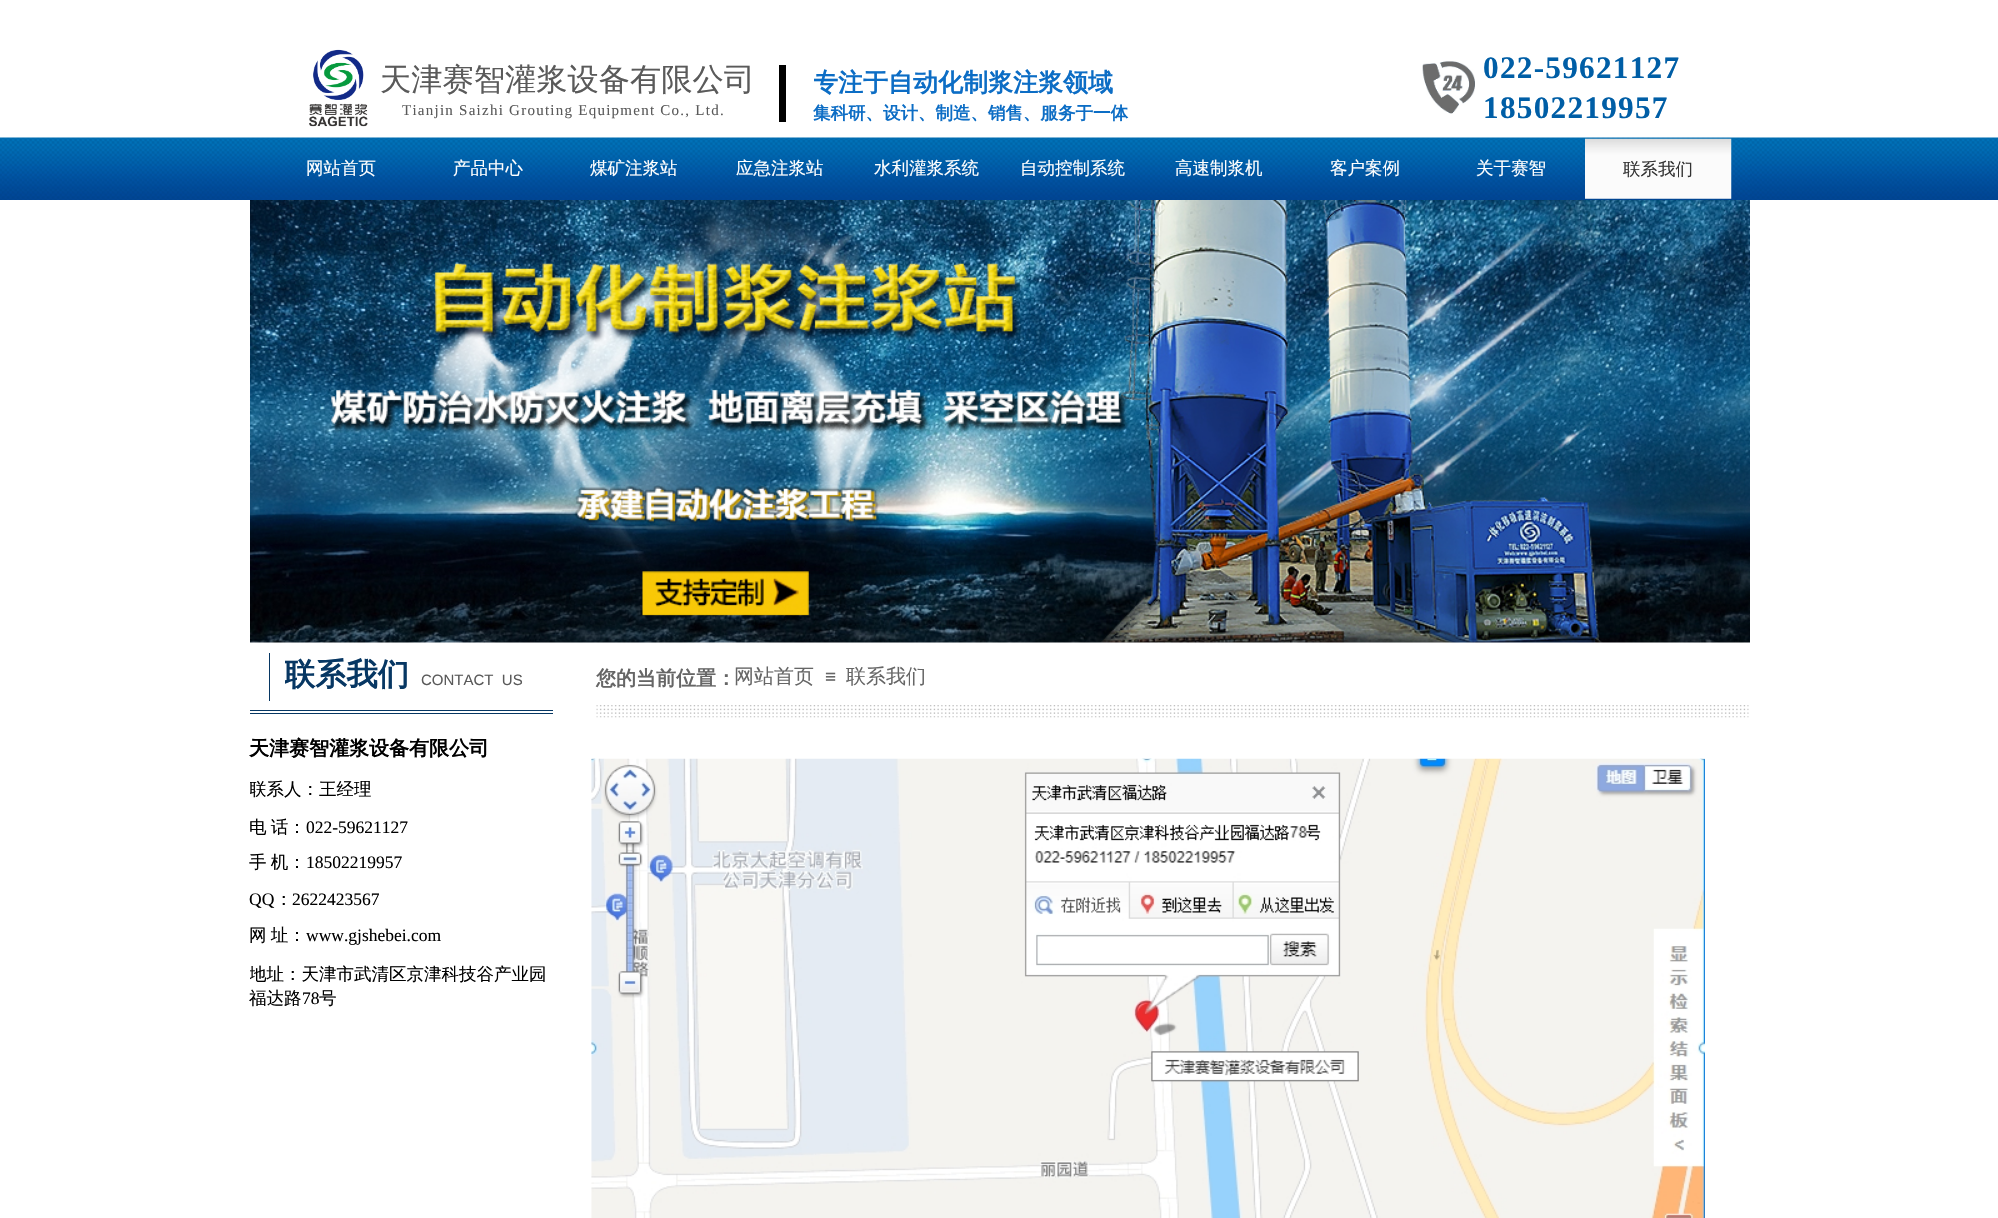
static SkFont makeFont(const char* family, int weight, float size, bool italic = false) {
  SkFontStyle style(weight, SkFontStyle::kNormal_Width,
    italic ? SkFontStyle::kItalic_Slant : SkFontStyle::kUpright_Slant);
  SkFont result(fontMgr->matchFamilyStyle(family, style), size);
  result.setSubpixel(true);
  return result;
}

static void text(SkCanvas* c, const char* s, float x, float y, const SkFont& font, SkColor color) {
  SkPaint ink(SkColor4f::FromColor(color));
  ink.setAntiAlias(true);
  c->drawString(s, x, y, font, ink);
}

static void spacedText(SkCanvas* c, const char* s, float x, float y, const SkFont& font, const SkPaint& ink, float letter, float word) {
  std::vector<SkGlyphID> glyphs(font.countText(s, strlen(s), SkTextEncoding::kUTF8));
  std::vector<float> xs(glyphs.size());
  font.textToGlyphs(s, strlen(s), SkTextEncoding::kUTF8, glyphs);
  font.getXPos(glyphs, xs, x);
  float extra = 0;
  for (size_t i = 0; i < glyphs.size(); i++) {
    xs[i] += extra;
    extra += letter + word * (glyphs[i] == font.unicharToGlyph(' '));
  }
  c->drawTextBlob(SkTextBlob::MakeFromPosHGlyphs(glyphs, xs, y, font), 0, 0, ink);
}

static void box(SkCanvas* c, float l, float t, float r, float b, SkColor color) {
  SkPaint ink(SkColor4f::FromColor(color));
  ink.setAntiAlias(true);
  c->drawRect(SkRect::MakeLTRB(l, t, r, b), ink);
}

static void picture(SkCanvas* c, const char* path, float l, float t, float r, float b) {
  auto image = SkImages::DeferredFromEncodedData(SkData::MakeFromFileName(path));
  c->drawImageRect(image, SkRect::MakeLTRB(l, t, r, b), SkSamplingOptions());
}

void draw(SkCanvas* c) {
  SkPaint paint;
  paint.setAntiAlias(true);
  c->clear(0xffffffff);
  picture(c, "img_01.png", 309, 49, 368, 127);
  SkFont face1 = makeFont("WenQuanYi Zen Hei", 500, 31.25f);
  text(c, "天津赛智灌浆设备有限公司", 380, 90, face1, 0xff5a5a5a);
  box(c, 779, 65, 786, 122, 0xff000000);
  c->save();
  c->clipRect(SkRect::MakeLTRB(814, 65, 1185, 96));
  SkFont face2 = makeFont("WenQuanYi Zen Hei", 700, 25);
  text(c, "专注于自动化制浆注浆领域", 813, 91, face2, 0xff0c6dc5);
  c->restore();
  picture(c, "img_02.png", 1422, 61, 1475, 114);
  SkFont face3 = makeFont("Liberation Serif", 700, 31.25f);
  paint.setColor(0xff005ea6);
  spacedText(c, "022-59621127", 1483, 78, face3, paint, 1.25f, 0);
  SkFont face4 = makeFont("Liberation Serif", 400, 15);
  paint.setColor(0xff5a5a5a);
  spacedText(c, "Tianjin Saizhi Grouting Equipment Co., Ltd.", 402, 115, face4, paint, 1.25f, 0);
  SkFont face5 = makeFont("WenQuanYi Zen Hei", 700, 17.5f);
  text(c, "集科研、设计、制造、销售、服务于一体", 813, 119, face5, 0xff0c6dc5);
  paint.setColor(0xff005ea6);
  spacedText(c, "18502219957", 1483, 118, face3, paint, 1.25f, 0);
  picture(c, "img_05.png", 0, 137, 1998, 200);
  picture(c, "img_03.png", 250, 139, 1750, 199);
  SkFont face6 = makeFont("WenQuanYi Zen Hei", 500, 17.5f);
  text(c, "网站首页", 306, 174, face6, 0xffffffff);
  text(c, "产品中心", 453, 174, face6, 0xffffffff);
  text(c, "煤矿注浆站", 590, 174, face6, 0xffffffff);
  text(c, "应急注浆站", 736, 174, face6, 0xffffffff);
  text(c, "水利灌浆系统", 874, 174, face6, 0xffffffff);
  text(c, "自动控制系统", 1020, 174, face6, 0xffffffff);
  text(c, "高速制浆机", 1175, 174, face6, 0xffffffff);
  text(c, "客户案例", 1330, 174, face6, 0xffffffff);
  text(c, "关于赛智", 1476, 174, face6, 0xffffffff);
  picture(c, "img_04.png", 1585, 138, 1732, 199);
  text(c, "联系我们", 1623, 175, face6, 0xff333333);
  picture(c, "img_06.png", 250, 200, 1750, 643);
  box(c, 269, 653, 270, 701, 0xff073763);
  c->save();
  c->clipRect(SkRect::MakeLTRB(285, 653, 553, 704));
  SkFont face7 = makeFont("WenQuanYi Zen Hei", 700, 31.25f);
  text(c, "联系我们", 284, 685, face7, 0xff073763);
  c->restore();
  SkFont face8 = makeFont("Liberation Sans", 400, 15);
  text(c, "CONTACT  US", 421, 685, face8, 0xff5a5a5a);
  SkFont face9 = makeFont("WenQuanYi Zen Hei", 700, 20);
  text(c, "您的当前位置：", 596, 685, face9, 0xff666666);
  SkFont face10 = makeFont("WenQuanYi Zen Hei", 500, 20);
  text(c, "网站首页", 734, 683, face10, 0xff666666);
  SkFont face11 = makeFont("Liberation Sans", 400, 19);
  text(c, "≡", 825, 683, face11, 0xff666666);
  text(c, "联系我们", 846, 683, face10, 0xff666666);
  box(c, 250, 710, 553, 711, 0xff073763);
  box(c, 250, 713, 553, 714, 0xff073763);
  picture(c, "img_07.png", 596, 705, 1749, 718);
  text(c, "天津赛智灌浆设备有限公司", 249, 755, face9, 0xff000000);
  c->save();
  c->clipRect(SkRect::MakeLTRB(250, 778, 553, 805));
  text(c, "联系人：王经理", 249, 795, face6, 0xff000000);
  c->restore();
  picture(c, "img_08.png", 591, 758, 1705, 1218);
  paint.setColor(0xff000000);
  spacedText(c, "电 话：", 249, 833, face6, paint, 0, -1);
  SkFont face12 = makeFont("Liberation Serif", 400, 17.5f);
  text(c, "022-59621127", 306, 833, face12, 0xff000000);
  spacedText(c, "手 机：", 249, 868, face6, paint, 0, -1);
  text(c, "18502219957", 306, 868, face12, 0xff000000);
  text(c, "QQ", 249, 905, face12, 0xff000000);
  text(c, "：", 275, 905, face6, 0xff000000);
  text(c, "2622423567", 292, 905, face12, 0xff000000);
  spacedText(c, "网 址：", 249, 941, face6, paint, 0, -1);
  text(c, "www.gjshebei.com", 306, 941, face12, 0xff000000);
  c->save();
  c->clipRect(SkRect::MakeLTRB(250, 963, 553, 1034));
  text(c, "地址：天津市武清区京津科技谷产业园", 249, 980, face6, 0xff000000);
  c->restore();
  text(c, "福达路", 249, 1004, face6, 0xff000000);
  text(c, "78", 302, 1004, face12, 0xff000000);
  text(c, "号", 319, 1004, face6, 0xff000000);
}
